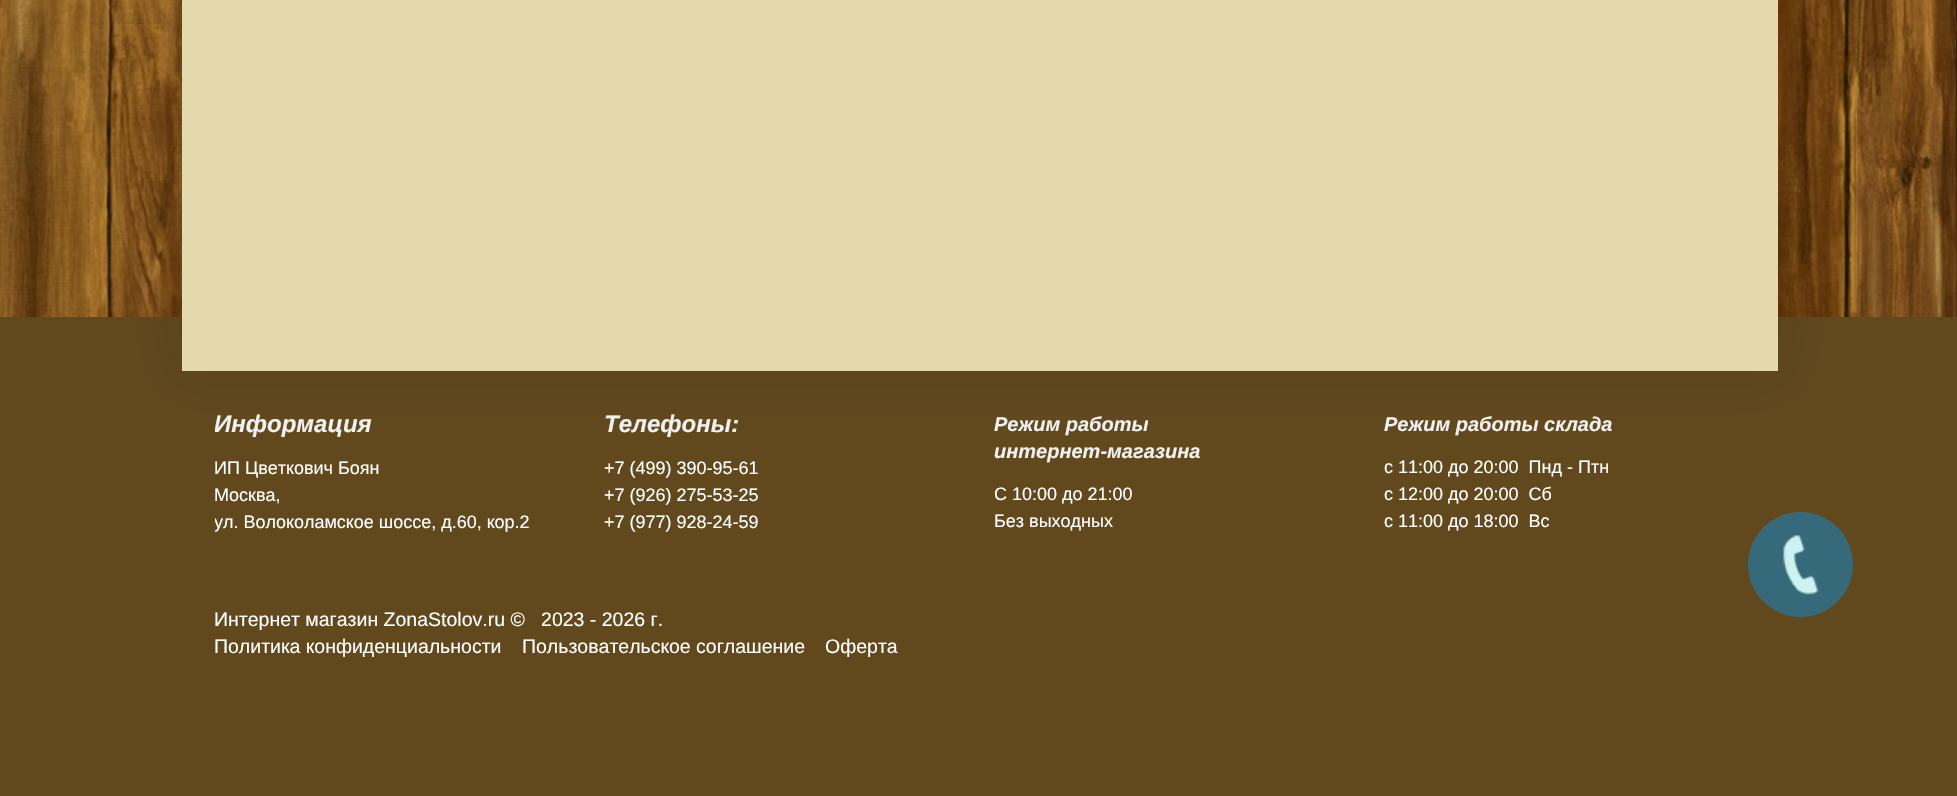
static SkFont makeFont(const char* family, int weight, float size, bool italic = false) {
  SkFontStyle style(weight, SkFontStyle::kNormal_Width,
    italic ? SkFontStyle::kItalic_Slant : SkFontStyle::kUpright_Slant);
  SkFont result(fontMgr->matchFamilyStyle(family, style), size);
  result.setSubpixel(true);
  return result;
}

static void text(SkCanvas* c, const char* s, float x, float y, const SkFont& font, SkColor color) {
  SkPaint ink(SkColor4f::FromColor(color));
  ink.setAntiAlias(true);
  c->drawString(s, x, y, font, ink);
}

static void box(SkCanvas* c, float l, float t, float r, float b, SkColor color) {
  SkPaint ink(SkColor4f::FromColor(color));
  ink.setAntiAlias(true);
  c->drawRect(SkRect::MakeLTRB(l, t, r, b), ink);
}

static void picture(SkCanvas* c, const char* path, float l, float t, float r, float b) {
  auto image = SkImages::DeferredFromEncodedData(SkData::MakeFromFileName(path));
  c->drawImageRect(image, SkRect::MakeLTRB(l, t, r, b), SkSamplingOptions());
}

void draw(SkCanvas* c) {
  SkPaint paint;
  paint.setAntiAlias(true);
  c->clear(0xffffffff);
  picture(c, "img_01.png", 0, 0, 1957, 317);
  box(c, 0, 317, 1957, 796, 0xff61481d);
  paint.setColor(0x1a000000);
  paint.setMaskFilter(SkMaskFilter::MakeBlur(kNormal_SkBlurStyle, 24));
  c->drawRect(SkRect::MakeLTRB(182, -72, 1778, 371), paint);
  paint.setMaskFilter(nullptr);
  box(c, 182, 0, 1778, 371, 0xffe4d9ac);
  paint.setColor(0xff366a7a);
  c->drawCircle(1800.5f, 564.5f, 52.5f, paint);
  picture(c, "img_02.png", 1783, 535, 1819, 595);
  c->save();
  c->clipRect(SkRect::MakeLTRB(215, 411, 1745, 576));
  SkFont face1 = makeFont("Liberation Sans", 700, 24, true);
  text(c, "Информация", 214, 432, face1, 0xfff0f0f0);
  c->restore();
  SkFont face2 = makeFont("Liberation Sans", 400, 18);
  text(c, "ИП Цветкович Боян", 214, 474, face2, 0xffffffff);
  text(c, "Москва,", 214, 501, face2, 0xffffffff);
  c->save();
  c->clipRect(SkRect::MakeLTRB(215, 411, 1745, 576));
  text(c, "ул. Волоколамское шоссе, д.60, кор.2", 214, 528, face2, 0xffffffff);
  c->restore();
  text(c, "Телефоны:", 604, 432, face1, 0xfff0f0f0);
  text(c, "+7 (499) 390-95-61", 604, 474, face2, 0xffffffff);
  text(c, "+7 (926) 275-53-25", 604, 501, face2, 0xffffffff);
  text(c, "+7 (977) 928-24-59", 604, 528, face2, 0xffffffff);
  SkFont face3 = makeFont("Liberation Sans", 700, 20, true);
  text(c, "Режим работы", 994, 431, face3, 0xfff0f0f0);
  text(c, "интернет-магазина", 994, 458, face3, 0xfff0f0f0);
  text(c, "С 10:00 до 21:00", 994, 500, face2, 0xffffffff);
  text(c, "Без выходных", 994, 527, face2, 0xffffffff);
  text(c, "Режим работы склада", 1384, 431, face3, 0xfff0f0f0);
  text(c, "с 11:00 до 20:00  Пнд - Птн", 1384, 473, face2, 0xffffffff);
  text(c, "с 12:00 до 20:00  Сб", 1384, 500, face2, 0xffffffff);
  text(c, "c 11:00 до 18:00  Вс", 1384, 527, face2, 0xffffffff);
  SkFont face4 = makeFont("Liberation Sans", 400, 19.5f);
  text(c, "Интернет магазин ZonaStolov.ru ©   2023 - 2026 г.", 214, 626, face4, 0xffffffff);
  text(c, "Политика конфиденциальности", 214, 653, face4, 0xffffffff);
  text(c, "Пользовательское соглашение", 522, 653, face4, 0xffffffff);
  text(c, "Оферта", 825, 653, face4, 0xffffffff);
}
